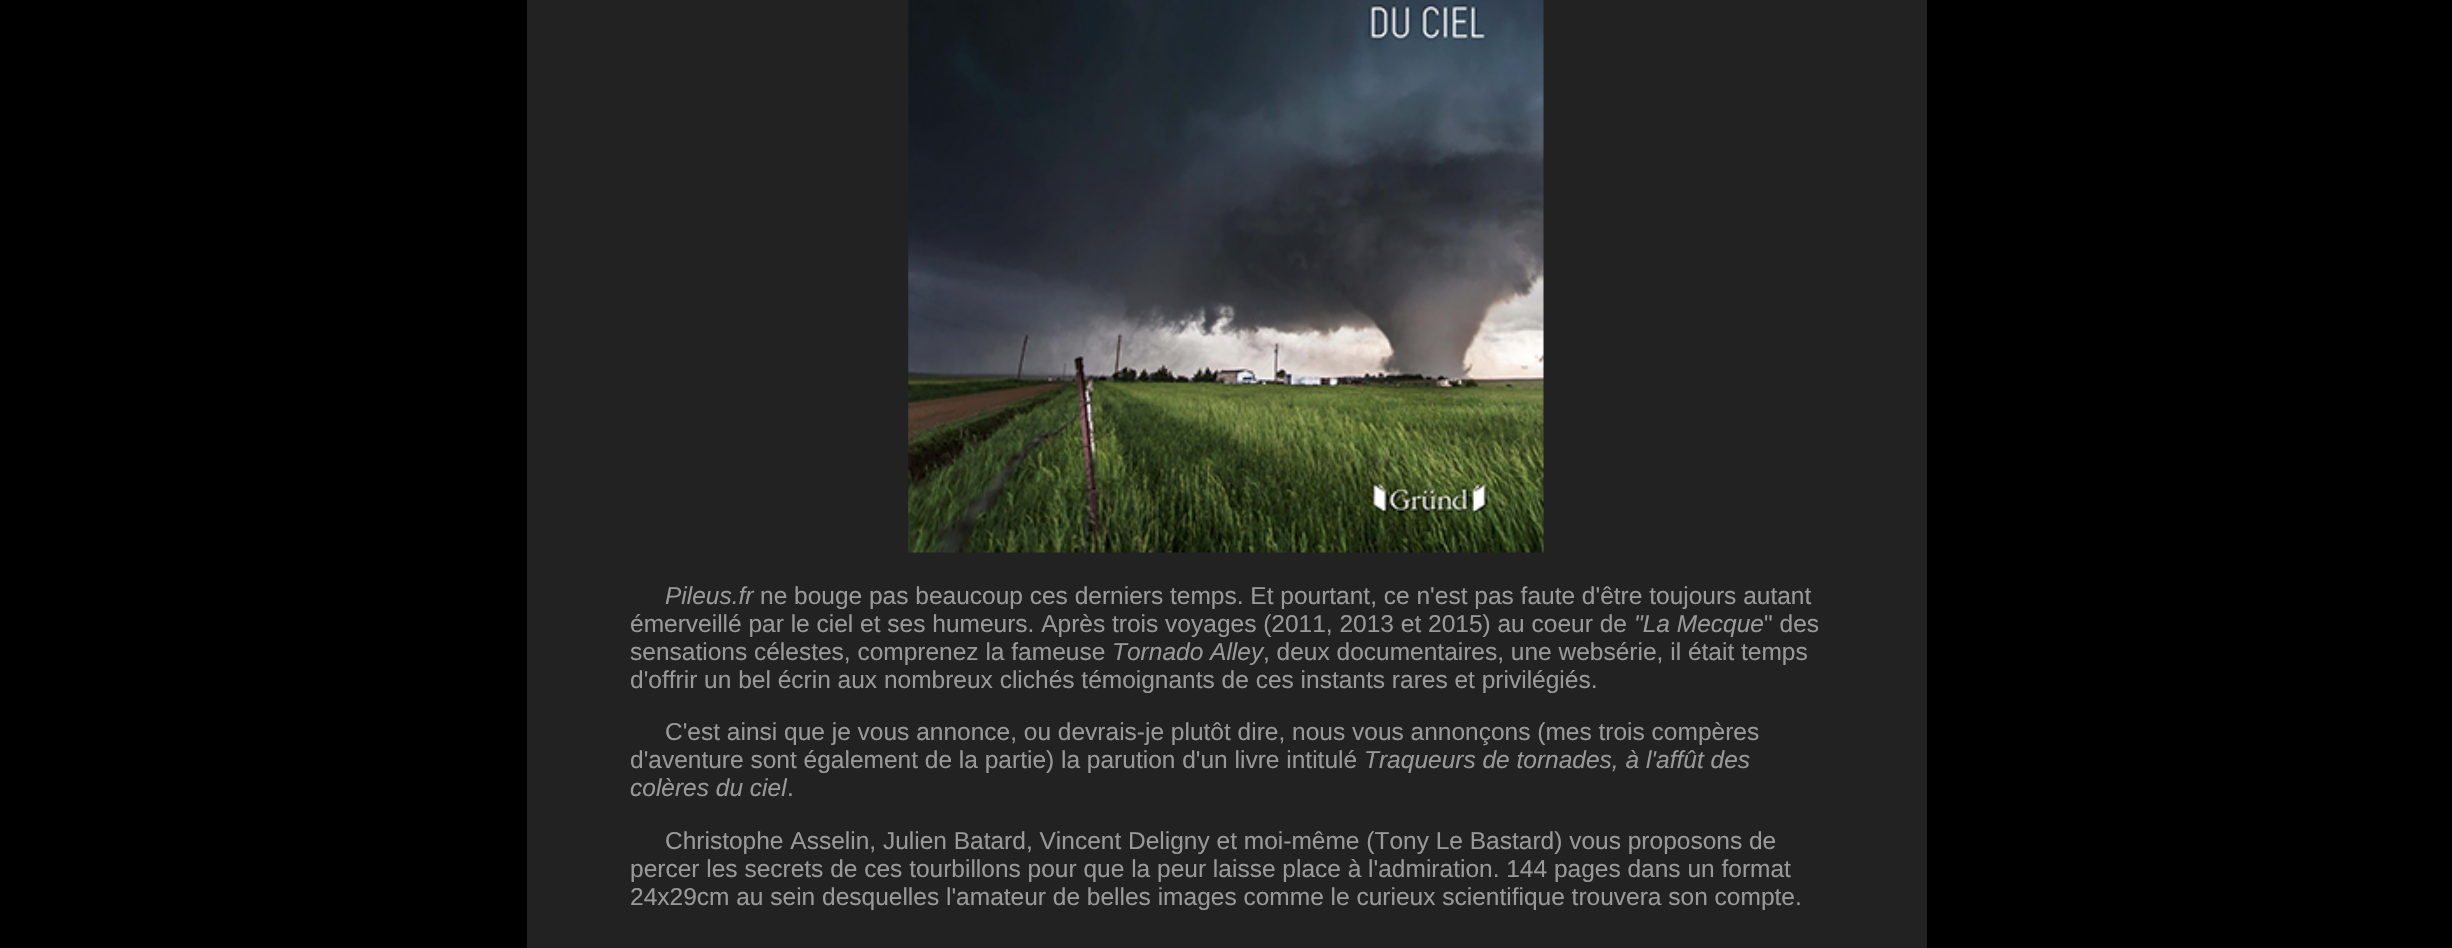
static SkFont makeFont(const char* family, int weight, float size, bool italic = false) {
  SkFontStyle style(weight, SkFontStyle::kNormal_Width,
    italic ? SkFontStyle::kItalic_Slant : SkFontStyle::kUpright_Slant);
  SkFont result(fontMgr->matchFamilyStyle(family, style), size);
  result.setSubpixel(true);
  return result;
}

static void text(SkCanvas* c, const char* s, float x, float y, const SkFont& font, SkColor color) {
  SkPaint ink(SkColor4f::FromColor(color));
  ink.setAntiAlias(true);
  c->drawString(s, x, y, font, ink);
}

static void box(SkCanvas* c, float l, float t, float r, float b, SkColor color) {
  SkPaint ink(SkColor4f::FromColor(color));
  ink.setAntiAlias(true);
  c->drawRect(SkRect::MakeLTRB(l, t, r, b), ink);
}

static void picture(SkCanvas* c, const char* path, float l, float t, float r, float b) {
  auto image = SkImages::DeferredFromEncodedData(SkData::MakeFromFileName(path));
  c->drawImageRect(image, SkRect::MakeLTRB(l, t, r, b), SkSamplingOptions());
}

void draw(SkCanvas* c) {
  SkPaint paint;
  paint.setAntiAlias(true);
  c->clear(0xff000000);
  box(c, 527, 0, 1927, 948, 0xff222222);
  picture(c, "img_01.png", 908, 0, 1544, 553);
  SkFont face1 = makeFont("Liberation Sans", 400, 24.5f, true);
  text(c, "Pileus.fr", 665, 604, face1, 0xff999999);
  SkFont face2 = makeFont("Liberation Sans", 400, 24.5f);
  text(c, "ne bouge pas beaucoup ces derniers temps. Et pourtant, ce n'est pas faute d'être toujours autant", 760, 604, face2, 0xff999999);
  text(c, "émerveillé par le ciel et ses humeurs. Après trois voyages (2011, 2013 et 2015) au coeur de", 630, 632, face2, 0xff999999);
  text(c, "\"La Mecque", 1634, 632, face1, 0xff999999);
  text(c, "\" des", 1764, 632, face2, 0xff999999);
  text(c, "sensations célestes, comprenez la fameuse", 630, 660, face2, 0xff999999);
  text(c, "Tornado Alley", 1112, 660, face1, 0xff999999);
  text(c, ", deux documentaires, une websérie, il était temps", 1263, 660, face2, 0xff999999);
  text(c, "d'offrir un bel écrin aux nombreux clichés témoignants de ces instants rares et privilégiés.", 630, 688, face2, 0xff999999);
  text(c, "C'est ainsi que je vous annonce, ou devrais-je plutôt dire, nous vous annonçons (mes trois compères", 665, 740, face2, 0xff999999);
  text(c, "d'aventure sont également de la partie) la parution d'un livre intitulé", 630, 768, face2, 0xff999999);
  text(c, "Traqueurs de tornades, à l'affût des", 1364, 768, face1, 0xff999999);
  text(c, "colères du ciel", 630, 796, face1, 0xff999999);
  text(c, ".", 787, 796, face2, 0xff999999);
  text(c, "Christophe Asselin, Julien Batard, Vincent Deligny et moi-même (Tony Le Bastard) vous proposons de", 665, 849, face2, 0xff999999);
  text(c, "percer les secrets de ces tourbillons pour que la peur laisse place à l'admiration. 144 pages dans un format", 630, 877, face2, 0xff999999);
  text(c, "24x29cm au sein desquelles l'amateur de belles images comme le curieux scientifique trouvera son compte.", 630, 905, face2, 0xff999999);
}
